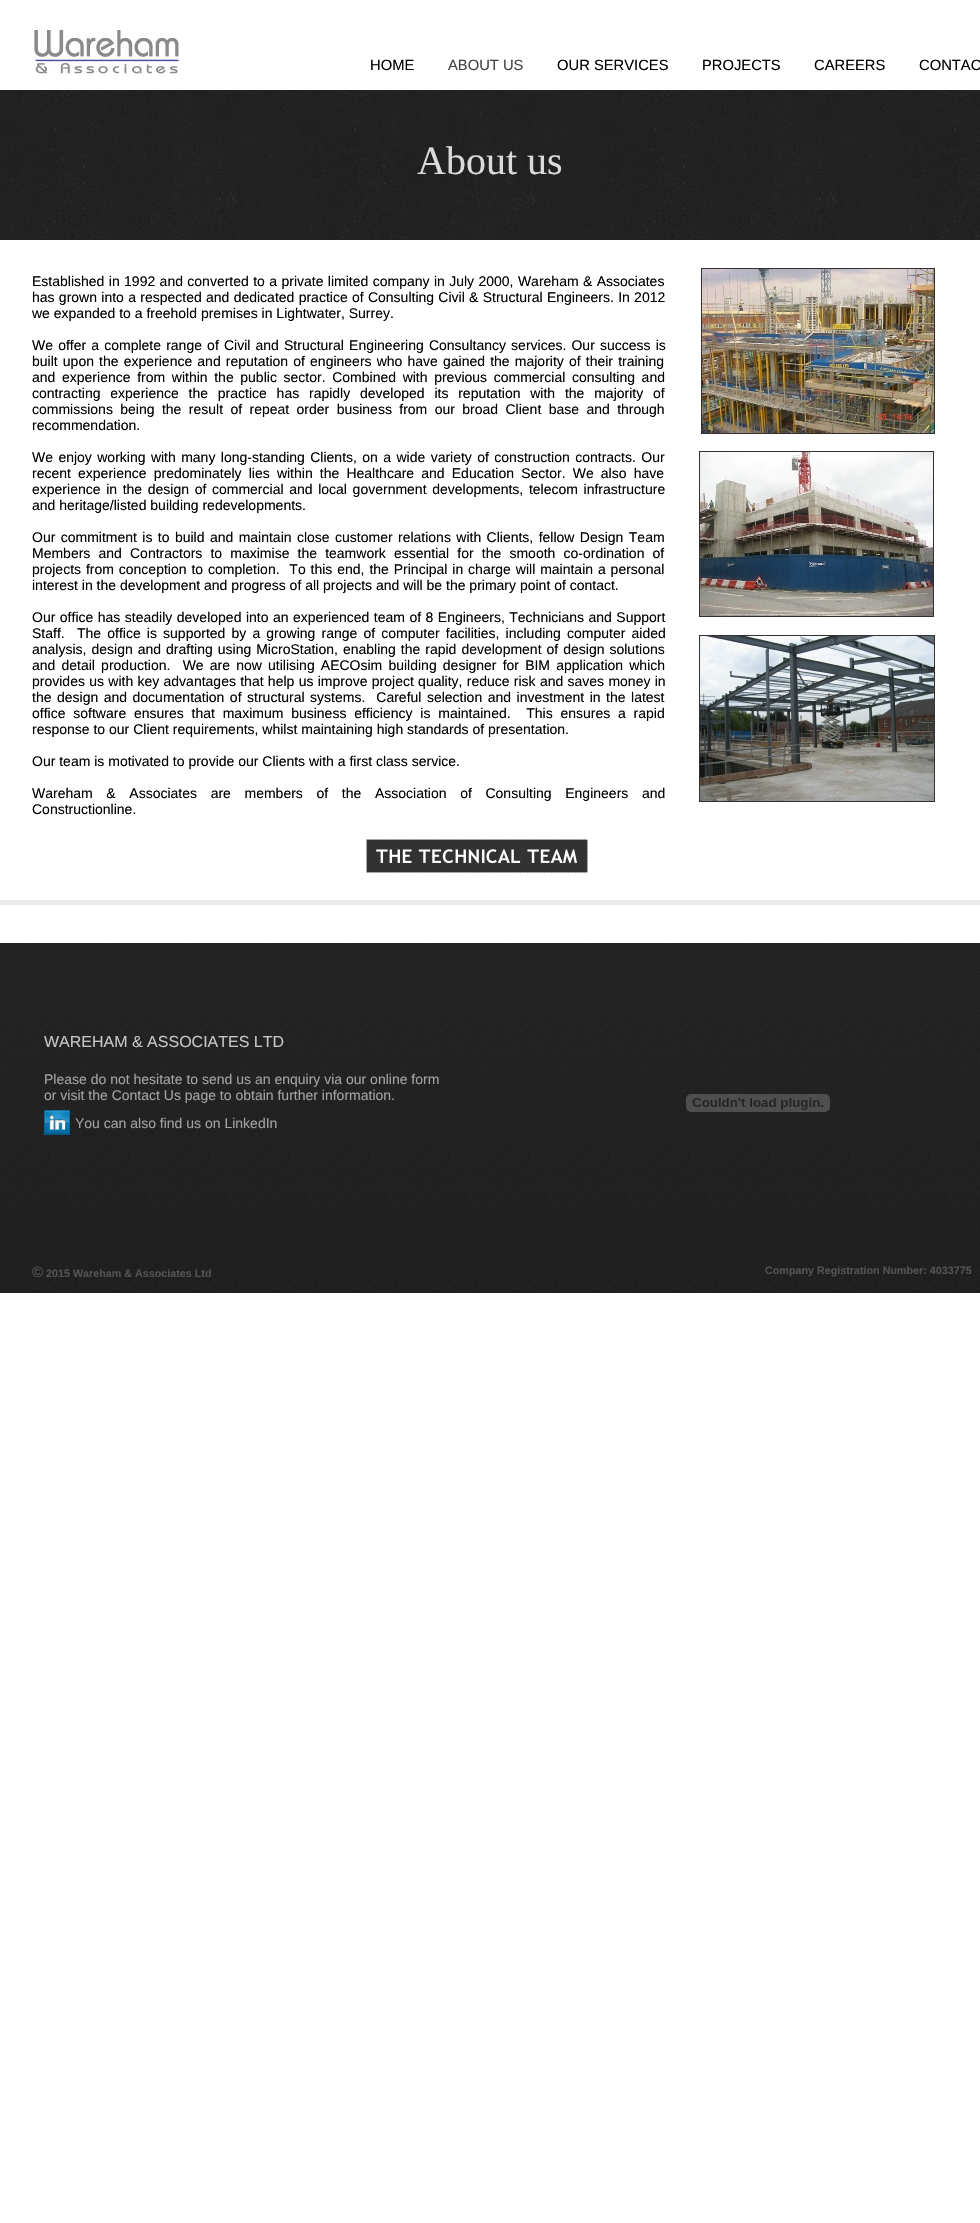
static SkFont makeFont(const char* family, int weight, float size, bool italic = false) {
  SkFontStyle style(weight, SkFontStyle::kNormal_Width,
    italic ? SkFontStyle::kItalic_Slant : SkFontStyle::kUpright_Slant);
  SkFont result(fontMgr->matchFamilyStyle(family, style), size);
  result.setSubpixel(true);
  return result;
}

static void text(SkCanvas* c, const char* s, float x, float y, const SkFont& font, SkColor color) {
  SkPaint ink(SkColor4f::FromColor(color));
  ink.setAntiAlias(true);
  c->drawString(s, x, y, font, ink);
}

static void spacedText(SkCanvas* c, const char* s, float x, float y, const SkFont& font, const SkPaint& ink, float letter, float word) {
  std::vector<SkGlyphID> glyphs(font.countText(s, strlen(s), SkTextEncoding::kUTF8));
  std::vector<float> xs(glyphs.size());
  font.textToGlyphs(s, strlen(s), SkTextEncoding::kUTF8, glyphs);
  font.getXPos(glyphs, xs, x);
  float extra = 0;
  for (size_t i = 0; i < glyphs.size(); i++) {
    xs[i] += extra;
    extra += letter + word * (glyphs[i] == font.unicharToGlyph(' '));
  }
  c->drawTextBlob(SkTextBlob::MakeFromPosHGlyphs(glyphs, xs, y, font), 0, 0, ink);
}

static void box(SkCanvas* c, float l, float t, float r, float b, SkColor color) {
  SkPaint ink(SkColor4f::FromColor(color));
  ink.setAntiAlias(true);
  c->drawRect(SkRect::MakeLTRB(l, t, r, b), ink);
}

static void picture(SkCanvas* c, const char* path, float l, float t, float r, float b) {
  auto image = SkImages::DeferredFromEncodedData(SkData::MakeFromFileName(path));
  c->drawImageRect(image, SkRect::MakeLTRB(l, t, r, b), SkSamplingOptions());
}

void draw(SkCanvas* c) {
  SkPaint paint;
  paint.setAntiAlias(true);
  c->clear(0xffffffff);
  picture(c, "img_01.png", 0, 90, 980, 240);
  picture(c, "img_02.png", 0, 943, 980, 1293);
  picture(c, "img_03.png", 34, 30, 179, 74);
  SkFont face1 = makeFont("Liberation Sans", 400, 14.75f);
  text(c, "HOME", 370, 70, face1, 0xff000000);
  text(c, "ABOUT US", 448, 70, face1, 0xff424242);
  text(c, "OUR SERVICES", 557, 70, face1, 0xff000000);
  text(c, "PROJECTS", 702, 70, face1, 0xff000000);
  text(c, "CAREERS", 814, 70, face1, 0xff000000);
  text(c, "CONTAC", 919, 70, face1, 0xff000000);
  SkFont face2 = makeFont("Liberation Serif", 400, 40);
  text(c, "About us", 417, 174, face2, 0xffdadada);
  SkFont face3 = makeFont("Liberation Sans", 400, 14);
  paint.setColor(0xff000000);
  spacedText(c, "Established in 1992 and converted to a private limited company in July 2000, Wareham & Associates", 32, 286, face3, paint, 0, 0.5f);
  spacedText(c, "has grown into a respected and dedicated practice of Consulting Civil & Structural Engineers. In 2012", 32, 302, face3, paint, 0, 0.4f);
  text(c, "we expanded to a freehold premises in Lightwater, Surrey.", 32, 318, face3, 0xff000000);
  spacedText(c, "We offer a complete range of Civil and Structural Engineering Consultancy services. Our success is", 32, 350, face3, paint, 0, 1.25f);
  spacedText(c, "built upon the experience and reputation of engineers who have gained the majority of their training", 32, 366, face3, paint, 0, 1.25f);
  spacedText(c, "and experience from within the public sector. Combined with previous commercial consulting and", 32, 382, face3, paint, 0, 2.75f);
  spacedText(c, "contracting experience the practice has rapidly developed its reputation with the majority of", 32, 398, face3, paint, 0, 5.9f);
  spacedText(c, "commissions being the result of repeat order business from our broad Client base and through", 32, 414, face3, paint, 0, 3.5f);
  text(c, "recommendation.", 32, 430, face3, 0xff000000);
  spacedText(c, "We enjoy working with many long-standing Clients, on a wide variety of construction contracts. Our", 32, 462, face3, paint, 0, 1.5f);
  spacedText(c, "recent experience predominately lies within the Healthcare and Education Sector. We also have", 32, 478, face3, paint, 0, 3.25f);
  spacedText(c, "experience in the design of commercial and local government developments, telecom infrastructure", 32, 494, face3, paint, 0, 1.75f);
  text(c, "and heritage/listed building redevelopments.", 32, 510, face3, 0xff000000);
  spacedText(c, "Our commitment is to build and maintain close customer relations with Clients, fellow Design Team", 32, 542, face3, paint, 0, 1.5f);
  spacedText(c, "Members and Contractors to maximise the teamwork essential for the smooth co-ordination of", 32, 558, face3, paint, 0, 4.25f);
  spacedText(c, "projects from conception to completion.  To this end, the Principal in charge will maintain a personal", 32, 574, face3, paint, 0, 1);
  text(c, "interest in the development and progress of all projects and will be the primary point of contact.", 32, 590, face3, 0xff000000);
  spacedText(c, "Our office has steadily developed into an experienced team of 8 Engineers, Technicians and Support", 32, 622, face3, paint, 0, 0.6f);
  spacedText(c, "Staff.  The office is supported by a growing range of computer facilities, including computer aided", 32, 638, face3, paint, 0, 2.25f);
  spacedText(c, "analysis, design and drafting using MicroStation, enabling the rapid development of design solutions", 32, 654, face3, paint, 0, 1.1f);
  spacedText(c, "and detail production.  We are now utilising AECOsim building designer for BIM application which", 32, 670, face3, paint, 0, 2.25f);
  spacedText(c, "provides us with key advantages that help us improve project quality, reduce risk and saves money in", 32, 686, face3, paint, 0, 0.4f);
  spacedText(c, "the design and documentation of structural systems.  Careful selection and investment in the latest", 32, 702, face3, paint, 0, 1.6f);
  spacedText(c, "office software ensures that maximum business efficiency is maintained.  This ensures a rapid", 32, 718, face3, paint, 0, 3.9f);
  text(c, "response to our Client requirements, whilst maintaining high standards of presentation.", 32, 734, face3, 0xff000000);
  text(c, "Our team is motivated to provide our Clients with a first class service.", 32, 766, face3, 0xff000000);
  spacedText(c, "Wareham & Associates are members of the Association of Consulting Engineers and", 32, 798, face3, paint, 0, 9.75f);
  text(c, "Constructionline.", 32, 814, face3, 0xff000000);
  picture(c, "img_04.png", 701, 268, 935, 434);
  picture(c, "img_05.png", 699, 451, 934, 617);
  picture(c, "img_06.png", 699, 635, 935, 802);
  picture(c, "img_07.png", 366, 839, 588, 873);
  box(c, 0, 900, 980, 905, 0xffebebeb);
  SkFont face4 = makeFont("Liberation Sans", 400, 16);
  text(c, "WAREHAM & ASSOCIATES LTD", 44, 1047, face4, 0xffc4c4c4);
  text(c, "Please do not hesitate to send us an enquiry via our online form", 44, 1084, face3, 0xffa2a2a2);
  text(c, "or visit the Contact Us page to obtain further information.", 44, 1100, face3, 0xffa2a2a2);
  text(c, "You can also find us on LinkedIn", 75, 1128, face3, 0xffa2a2a2);
  picture(c, "img_08.png", 686, 1094, 830, 1112);
  picture(c, "img_09.png", 44, 1110, 70, 1135);
  SkFont face5 = makeFont("Liberation Sans", 700, 15);
  text(c, "©", 32, 1277, face5, 0xff535353);
  SkFont face6 = makeFont("Liberation Sans", 700, 10.75f);
  text(c, "2015 Wareham & Associates Ltd", 46, 1277, face6, 0xff535353);
  text(c, "Company Registration Number: 4033775", 765, 1274, face6, 0xff535353);
}
